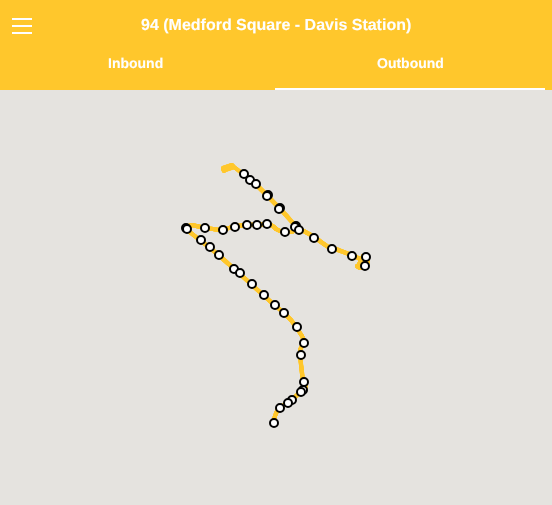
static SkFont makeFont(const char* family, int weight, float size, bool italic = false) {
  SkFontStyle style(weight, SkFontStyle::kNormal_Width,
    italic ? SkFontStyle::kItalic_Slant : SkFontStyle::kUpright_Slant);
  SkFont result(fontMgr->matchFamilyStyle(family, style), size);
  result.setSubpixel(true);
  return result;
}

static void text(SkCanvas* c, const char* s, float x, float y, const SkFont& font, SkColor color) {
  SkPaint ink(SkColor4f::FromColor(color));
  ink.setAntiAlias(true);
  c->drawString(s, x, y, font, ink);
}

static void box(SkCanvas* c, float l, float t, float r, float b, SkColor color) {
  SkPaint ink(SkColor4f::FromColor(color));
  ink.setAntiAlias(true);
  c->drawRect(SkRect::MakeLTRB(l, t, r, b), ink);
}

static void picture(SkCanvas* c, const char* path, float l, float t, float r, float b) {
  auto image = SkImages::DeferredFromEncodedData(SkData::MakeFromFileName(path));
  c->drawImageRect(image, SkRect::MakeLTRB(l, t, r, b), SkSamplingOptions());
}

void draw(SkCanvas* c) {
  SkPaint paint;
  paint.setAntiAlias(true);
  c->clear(0xffffc72c);
  box(c, 12, 32, 32, 34, 0xfffefefe);
  box(c, 12, 25, 32, 27, 0xfffefefe);
  box(c, 12, 18, 32, 20, 0xfffefefe);
  SkFont face1 = makeFont("Liberation Sans", 700, 16);
  text(c, "94 (Medford Square - Davis Station)", 141, 30, face1, 0xfffefefe);
  SkFont face2 = makeFont("Liberation Sans", 700, 14);
  text(c, "Inbound", 108, 68, face2, 0xfffefefe);
  box(c, 275, 88, 545, 90, 0xffffffff);
  text(c, "Outbound", 377, 68, face2, 0xfffefefe);
  box(c, 0, 90, 552, 505, 0xffe5e3df);
  picture(c, "img_01.png", 221, 163, 285, 211);
  picture(c, "img_02.png", 181, 211, 370, 419);
  picture(c, "img_03.png", 239, 169, 249, 179);
  picture(c, "img_04.png", 245, 175, 255, 185);
  picture(c, "img_05.png", 251, 179, 261, 189);
  picture(c, "img_06.png", 263, 190, 273, 200);
  picture(c, "img_07.png", 262, 191, 272, 201);
  picture(c, "img_08.png", 275, 203, 285, 213);
  picture(c, "img_09.png", 274, 204, 284, 214);
  picture(c, "img_10.png", 230, 222, 240, 232);
  picture(c, "img_11.png", 242, 220, 252, 230);
  picture(c, "img_12.png", 252, 220, 262, 230);
  picture(c, "img_13.png", 262, 219, 272, 229);
  picture(c, "img_14.png", 291, 221, 301, 226);
  picture(c, "img_15.png", 181, 223, 191, 233);
  picture(c, "img_16.png", 200, 223, 210, 233);
  picture(c, "img_17.png", 290, 222, 300, 232);
  picture(c, "img_18.png", 182, 224, 192, 234);
  picture(c, "img_19.png", 218, 225, 228, 235);
  picture(c, "img_20.png", 280, 227, 290, 237);
  picture(c, "img_21.png", 294, 225, 304, 235);
  picture(c, "img_22.png", 196, 235, 206, 245);
  picture(c, "img_23.png", 309, 233, 319, 243);
  picture(c, "img_24.png", 205, 242, 215, 252);
  picture(c, "img_25.png", 327, 244, 337, 254);
  picture(c, "img_26.png", 214, 250, 224, 260);
  picture(c, "img_27.png", 347, 251, 357, 261);
  picture(c, "img_28.png", 361, 252, 371, 262);
  picture(c, "img_29.png", 229, 264, 239, 274);
  picture(c, "img_30.png", 235, 268, 245, 278);
  picture(c, "img_31.png", 360, 261, 370, 271);
  picture(c, "img_32.png", 247, 279, 257, 289);
  picture(c, "img_33.png", 259, 290, 269, 300);
  picture(c, "img_34.png", 270, 300, 280, 310);
  picture(c, "img_35.png", 279, 308, 289, 318);
  picture(c, "img_36.png", 292, 322, 302, 332);
  picture(c, "img_37.png", 299, 338, 309, 348);
  picture(c, "img_38.png", 296, 350, 306, 360);
  picture(c, "img_39.png", 299, 377, 309, 387);
  picture(c, "img_40.png", 298, 385, 308, 395);
  picture(c, "img_41.png", 296, 387, 306, 397);
  picture(c, "img_42.png", 287, 395, 297, 405);
  picture(c, "img_44.png", 283, 398, 293, 408);
  picture(c, "img_43.png", 275, 403, 285, 413);
  picture(c, "img_45.png", 269, 418, 279, 428);
}
